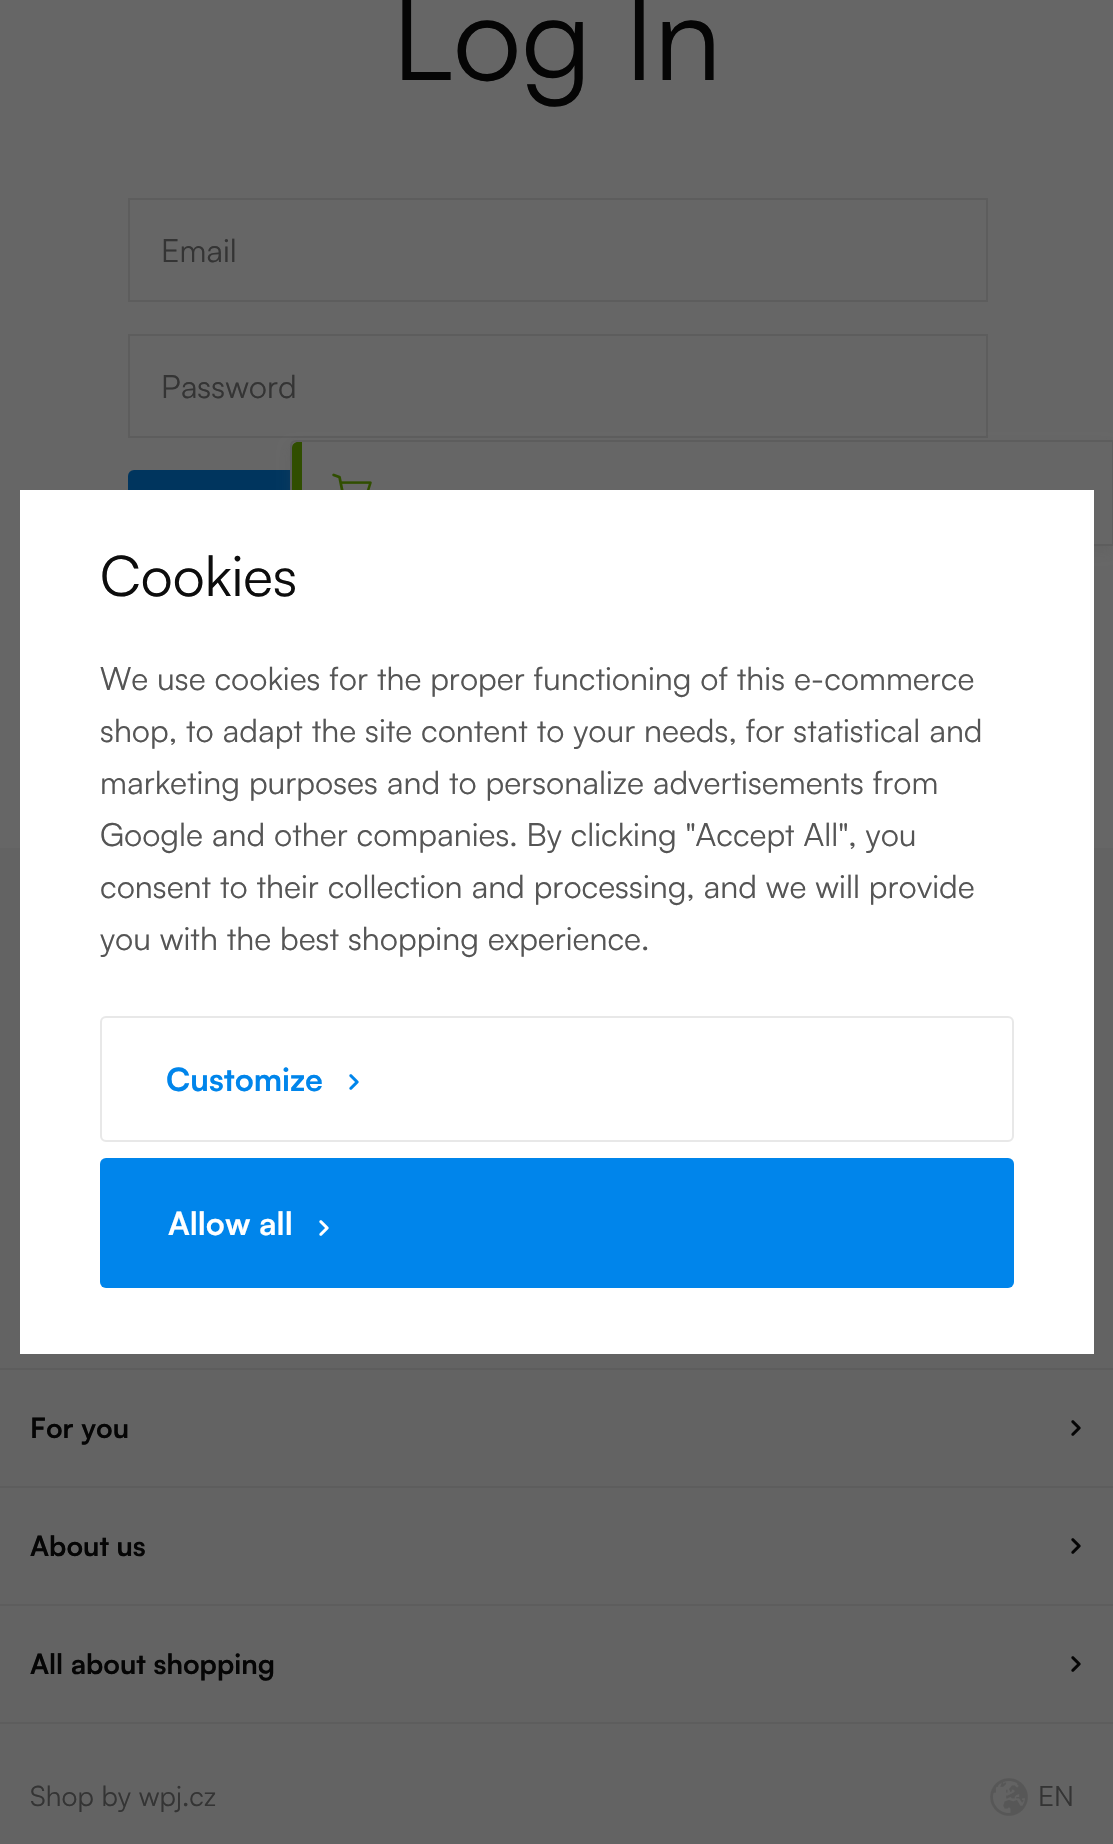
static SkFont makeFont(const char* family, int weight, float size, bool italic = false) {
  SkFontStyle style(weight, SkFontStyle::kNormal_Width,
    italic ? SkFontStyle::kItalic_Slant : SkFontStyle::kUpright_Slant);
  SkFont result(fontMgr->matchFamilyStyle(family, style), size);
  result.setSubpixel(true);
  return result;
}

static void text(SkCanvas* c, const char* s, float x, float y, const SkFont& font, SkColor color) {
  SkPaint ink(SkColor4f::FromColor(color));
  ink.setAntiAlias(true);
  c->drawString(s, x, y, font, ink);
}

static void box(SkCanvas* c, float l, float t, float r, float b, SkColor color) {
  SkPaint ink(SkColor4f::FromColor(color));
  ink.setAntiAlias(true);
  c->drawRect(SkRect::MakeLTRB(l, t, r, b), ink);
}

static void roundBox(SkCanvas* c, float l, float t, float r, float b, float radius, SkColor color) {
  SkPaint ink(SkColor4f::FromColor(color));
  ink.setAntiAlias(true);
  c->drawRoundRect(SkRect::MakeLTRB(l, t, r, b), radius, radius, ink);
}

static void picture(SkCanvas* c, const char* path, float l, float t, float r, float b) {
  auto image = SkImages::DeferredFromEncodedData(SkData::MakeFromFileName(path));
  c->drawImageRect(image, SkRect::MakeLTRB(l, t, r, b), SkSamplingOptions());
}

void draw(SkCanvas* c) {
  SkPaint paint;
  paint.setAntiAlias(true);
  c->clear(0xff666666);
  SkFont face1 = makeFont("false", 400, 120);
  text(c, "Log In", 392, 80, face1, 0xff050505);
  paint.setStyle(SkPaint::kStroke_Style);
  paint.setStrokeWidth(2);
  paint.setColor(0xff5d5d5d);
  c->drawRect(SkRect::MakeLTRB(129, 199, 987, 301), paint);
  SkFont face2 = makeFont("false", 400, 32);
  text(c, "Email", 161, 262, face2, 0xff343434);
  c->drawRect(SkRect::MakeLTRB(129, 335, 987, 437), paint);
  text(c, "Password", 161, 398, face2, 0xff343434);
  roundBox(c, 128, 470, 988, 600, 6, 0xff00355e);
  paint.setStyle(SkPaint::kFill_Style);
  paint.setColor(0x29505050);
  paint.setMaskFilter(SkMaskFilter::MakeBlur(kNormal_SkBlurStyle, 6));
  c->drawRoundRect(SkRect::MakeLTRB(290, 446, 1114, 552), 6, 6, paint);
  paint.setMaskFilter(nullptr);
  paint.setColor(0xff666666);
  c->drawPath(SkPathBuilder().moveTo(296, 441).lineTo(1113, 441).lineTo(1113, 545).lineTo(296, 545).cubicTo(293, 545, 291, 543, 291, 540).lineTo(291, 446).cubicTo(291, 443, 293, 441, 296, 441).close().detach(), paint);
  paint.setStyle(SkPaint::kStroke_Style);
  paint.setColor(0xff5d5d5d);
  c->drawPath(SkPathBuilder().moveTo(296, 441).lineTo(1113, 441).lineTo(1113, 545).lineTo(296, 545).cubicTo(293, 545, 291, 543, 291, 540).lineTo(291, 446).cubicTo(291, 443, 293, 441, 296, 441).close().detach(), paint);
  paint.setStyle(SkPaint::kFill_Style);
  paint.setColor(0xff304e00);
  c->drawPath(SkPathBuilder().moveTo(298, 442).lineTo(302, 442).lineTo(302, 544).lineTo(298, 544).cubicTo(294.5f, 544, 292, 541.5f, 292, 538).lineTo(292, 448).cubicTo(292, 444.5f, 294.5f, 442, 298, 442).close().detach(), paint);
  picture(c, "img_01.png", 332, 473, 372, 490);
  box(c, 0, 848, 1113, 1844, 0xff636363);
  box(c, 20, 490, 1094, 1354, 0xffffffff);
  SkFont face3 = makeFont("false", 400, 56);
  text(c, "Cookies", 100, 596, face3, 0xff0d0d0d);
  text(c, "We use cookies for the proper functioning of this e-commerce", 100, 690, face2, 0xff555555);
  text(c, "shop, to adapt the site content to your needs, for statistical and", 100, 742, face2, 0xff555555);
  text(c, "marketing purposes and to personalize advertisements from", 100, 794, face2, 0xff555555);
  text(c, "Google and other companies. By clicking \"Accept All\", you", 100, 846, face2, 0xff555555);
  text(c, "consent to their collection and processing, and we will provide", 100, 898, face2, 0xff555555);
  text(c, "you with the best shopping experience.", 100, 950, face2, 0xff555555);
  paint.setStyle(SkPaint::kStroke_Style);
  paint.setColor(0xffe8e8e8);
  c->drawRoundRect(SkRect::MakeLTRB(101, 1017, 1013, 1141), 5, 5, paint);
  SkFont face4 = makeFont("false", 700, 32);
  text(c, "Customize", 166, 1091, face4, 0xff0085eb);
  picture(c, "img_02.png", 349, 1074, 359, 1090);
  roundBox(c, 100, 1158, 1014, 1288, 6, 0xff0085eb);
  text(c, "Allow all", 168, 1235, face4, 0xffffffff);
  picture(c, "img_03.png", 319, 1220, 329, 1236);
  box(c, 0, 1368, 1113, 1370, 0xff5d5d5d);
  SkFont face5 = makeFont("false", 700, 28);
  text(c, "For you", 30, 1438, face5, 0xff050505);
  picture(c, "img_04.png", 1071, 1420, 1081, 1436);
  box(c, 0, 1486, 1113, 1488, 0xff5d5d5d);
  text(c, "About us", 30, 1556, face5, 0xff050505);
  picture(c, "img_04.png", 1071, 1538, 1081, 1554);
  box(c, 0, 1604, 1113, 1606, 0xff5d5d5d);
  box(c, 0, 1722, 1113, 1724, 0xff5d5d5d);
  text(c, "All about shopping", 30, 1674, face5, 0xff050505);
  picture(c, "img_04.png", 1071, 1656, 1081, 1672);
  SkFont face6 = makeFont("false", 400, 28);
  text(c, "Shop by wpj.cz", 30, 1806, face6, 0xff343434);
  picture(c, "img_05.png", 990, 1778, 1028, 1816);
  text(c, "EN", 1038, 1806, face6, 0xff343434);
}
